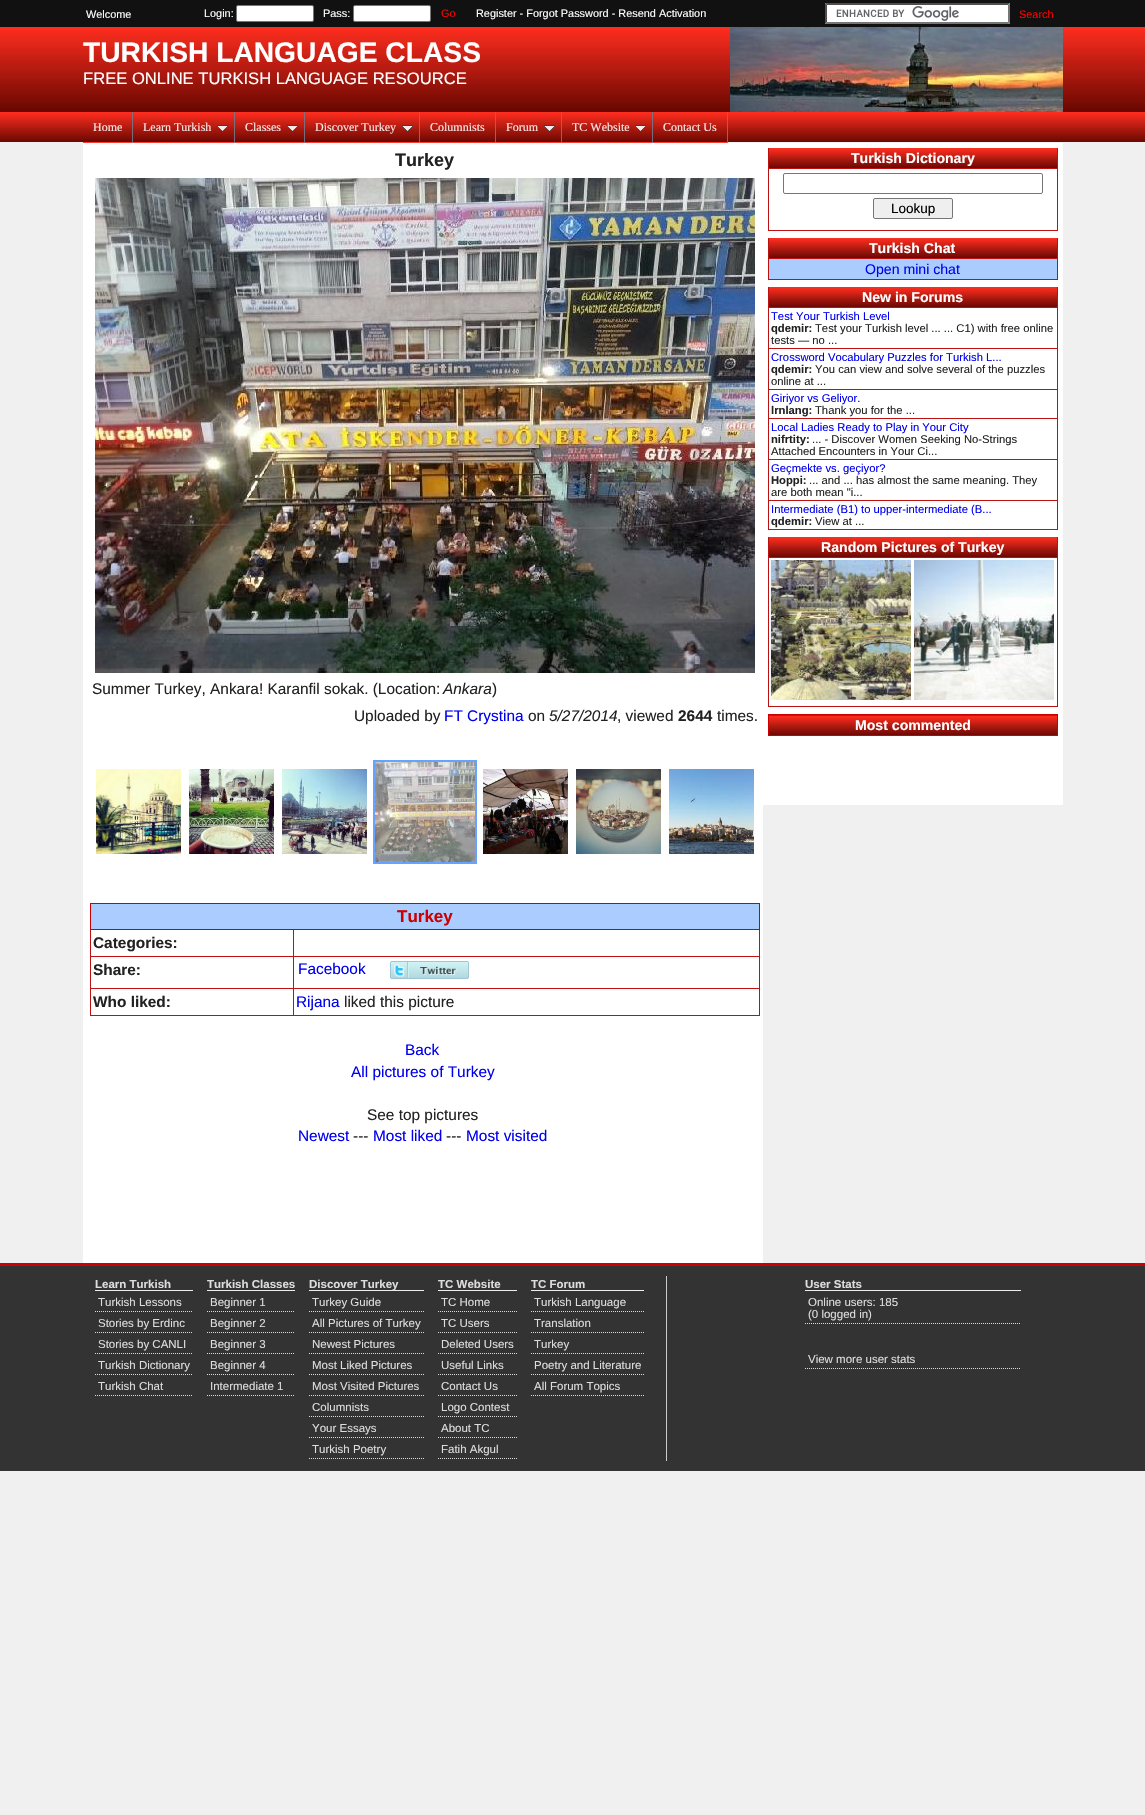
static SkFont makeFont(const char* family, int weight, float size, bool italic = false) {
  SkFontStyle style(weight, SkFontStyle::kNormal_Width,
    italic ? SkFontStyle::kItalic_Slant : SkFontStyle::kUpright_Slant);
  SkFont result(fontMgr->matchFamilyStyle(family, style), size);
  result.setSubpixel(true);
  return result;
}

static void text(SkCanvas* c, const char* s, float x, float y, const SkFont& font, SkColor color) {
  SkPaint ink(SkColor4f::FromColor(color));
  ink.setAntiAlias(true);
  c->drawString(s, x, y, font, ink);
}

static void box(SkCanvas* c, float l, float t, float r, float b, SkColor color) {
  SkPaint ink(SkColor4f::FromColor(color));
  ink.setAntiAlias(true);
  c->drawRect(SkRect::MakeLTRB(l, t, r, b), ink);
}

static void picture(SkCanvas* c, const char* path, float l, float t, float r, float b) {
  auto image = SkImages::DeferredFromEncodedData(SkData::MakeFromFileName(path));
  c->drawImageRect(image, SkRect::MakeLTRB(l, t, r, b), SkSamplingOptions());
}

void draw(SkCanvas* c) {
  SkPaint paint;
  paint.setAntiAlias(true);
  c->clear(0xfff0f0f0);
  box(c, 0, 0, 1145, 27, 0xff111111);
  SkFont face1 = makeFont("Liberation Sans", 400, 10.9f);
  text(c, "Welcome", 86, 18, face1, 0xffffffff);
  text(c, "Login:", 204, 17, face1, 0xffffffff);
  paint.setColor(0xffffffff);
  c->drawRoundRect(SkRect::MakeLTRB(236.5f, 5.5f, 313.5f, 21.5f), 1.5f, 1.5f, paint);
  paint.setStyle(SkPaint::kStroke_Style);
  paint.setStrokeWidth(1);
  paint.setColor(0xff767676);
  c->drawRoundRect(SkRect::MakeLTRB(236.5f, 5.5f, 313.5f, 21.5f), 1.5f, 1.5f, paint);
  text(c, "Pass:", 323, 17, face1, 0xffffffff);
  paint.setStyle(SkPaint::kFill_Style);
  paint.setColor(0xffffffff);
  c->drawRoundRect(SkRect::MakeLTRB(353.5f, 5.5f, 430.5f, 21.5f), 1.5f, 1.5f, paint);
  paint.setStyle(SkPaint::kStroke_Style);
  paint.setColor(0xff767676);
  c->drawRoundRect(SkRect::MakeLTRB(353.5f, 5.5f, 430.5f, 21.5f), 1.5f, 1.5f, paint);
  text(c, "Go", 441, 17, face1, 0xffff0000);
  text(c, "Register - Forgot Password - Resend Activation", 476, 17, face1, 0xffffffff);
  box(c, 825, 3, 1010, 24, 0xffffffff);
  picture(c, "img_01.png", 836, 6, 959, 21);
  paint.setStyle(SkPaint::kFill_Style);
  paint.setColor(0xff4f4f4f);
  c->drawPath(SkPathBuilder().moveTo(825, 3).lineTo(1010, 3).lineTo(1008, 5).lineTo(827, 5).close().detach(), paint);
  paint.setColor(0xff767676);
  c->drawPath(SkPathBuilder().moveTo(1010, 3).lineTo(1010, 24).lineTo(1008, 22).lineTo(1008, 5).close().detach(), paint);
  c->drawPath(SkPathBuilder().moveTo(1010, 24).lineTo(825, 24).lineTo(827, 22).lineTo(1008, 22).close().detach(), paint);
  paint.setColor(0xff4f4f4f);
  c->drawPath(SkPathBuilder().moveTo(825, 24).lineTo(825, 3).lineTo(827, 5).lineTo(827, 22).close().detach(), paint);
  text(c, "Search", 1019, 18, face1, 0xffff0000);
  picture(c, "img_02.png", 0, 27, 1145, 112);
  SkFont face2 = makeFont("Liberation Sans", 700, 28.2f);
  text(c, "TURKISH LANGUAGE CLASS", 83, 62, face2, 0xffffffff);
  SkFont face3 = makeFont("Liberation Sans", 400, 16.6f);
  text(c, "FREE ONLINE TURKISH LANGUAGE RESOURCE", 83, 84, face3, 0xffffffff);
  picture(c, "img_03.png", 730, 27, 1063, 112);
  picture(c, "img_04.png", 0, 112, 1145, 142);
  box(c, 83, 142, 728, 143, 0xfffb4134);
  box(c, 132, 112, 133, 143, 0xe6777788);
  SkFont face4 = makeFont("Liberation Serif", 400, 12);
  text(c, "Home", 93, 131, face4, 0xfff7e8e7);
  box(c, 234, 112, 235, 143, 0xe6777788);
  text(c, "Learn Turkish", 143, 131, face4, 0xfff7e8e7);
  picture(c, "img_05.png", 217, 125, 228, 132);
  box(c, 304, 112, 305, 143, 0xe6777788);
  text(c, "Classes", 245, 131, face4, 0xfff7e8e7);
  picture(c, "img_05.png", 287, 125, 298, 132);
  box(c, 419, 112, 420, 143, 0xe6777788);
  text(c, "Discover Turkey", 315, 131, face4, 0xfff7e8e7);
  picture(c, "img_06.png", 402, 125, 413, 132);
  box(c, 495, 112, 496, 143, 0xe6777788);
  text(c, "Columnists", 430, 131, face4, 0xfff7e8e7);
  box(c, 561, 112, 562, 143, 0xe6777788);
  text(c, "Forum", 506, 131, face4, 0xfff7e8e7);
  picture(c, "img_06.png", 544, 125, 555, 132);
  box(c, 652, 112, 653, 143, 0xe6777788);
  text(c, "TC Website", 572, 131, face4, 0xfff7e8e7);
  picture(c, "img_05.png", 635, 125, 646, 132);
  box(c, 727, 112, 728, 143, 0xe6777788);
  text(c, "Contact Us", 663, 131, face4, 0xfff7e8e7);
  box(c, 83, 143, 763, 1263, 0xffffffff);
  SkFont face5 = makeFont("Liberation Sans", 700, 18);
  text(c, "Turkey", 395, 166, face5, 0xff222222);
  picture(c, "img_07.png", 95, 178, 755, 673);
  SkFont face6 = makeFont("Liberation Sans", 400, 15.4f);
  text(c, "Summer Turkey, Ankara! Karanfil sokak. (Location:", 92, 694, face6, 0xff222222);
  SkFont face7 = makeFont("Liberation Sans", 400, 15.4f, true);
  text(c, "Ankara", 443, 694, face7, 0xff222222);
  text(c, ")", 492, 694, face6, 0xff222222);
  text(c, "Uploaded by", 354, 721, face6, 0xff222222);
  text(c, "FT Crystina", 444, 721, face6, 0xff0000ee);
  text(c, "on", 528, 721, face6, 0xff222222);
  text(c, "5/27/2014", 549, 721, face7, 0xff222222);
  text(c, ", viewed", 617, 721, face6, 0xff222222);
  SkFont face8 = makeFont("Liberation Sans", 700, 15.4f);
  text(c, "2644", 678, 721, face8, 0xff222222);
  text(c, "times.", 717, 721, face6, 0xff222222);
  picture(c, "img_08.png", 96, 769, 181, 854);
  picture(c, "img_09.png", 189, 769, 274, 854);
  picture(c, "img_10.png", 282, 769, 367, 854);
  paint.setStyle(SkPaint::kStroke_Style);
  paint.setStrokeWidth(2);
  paint.setColor(0xff66a3ff);
  c->drawRect(SkRect::MakeLTRB(374, 761, 476, 863), paint);
  picture(c, "img_11.png", 375, 762, 475, 862);
  picture(c, "img_12.png", 483, 769, 568, 854);
  picture(c, "img_13.png", 576, 769, 661, 854);
  picture(c, "img_14.png", 669, 769, 754, 854);
  box(c, 91, 904, 759, 929, 0xffaaccff);
  box(c, 90, 903, 760, 904, 0xffcc0000);
  box(c, 293, 956, 760, 957, 0xffbb1111);
  box(c, 293, 988, 760, 989, 0xffbb1111);
  box(c, 759, 988, 760, 1016, 0xffbb1111);
  box(c, 759, 929, 760, 989, 0xffbb1111);
  box(c, 759, 903, 760, 930, 0xffcc0000);
  box(c, 293, 1015, 760, 1016, 0xffbb1111);
  box(c, 293, 988, 294, 1016, 0xffbb1111);
  box(c, 90, 988, 294, 989, 0xffbb1111);
  box(c, 293, 956, 294, 989, 0xffbb1111);
  box(c, 90, 956, 294, 957, 0xffbb1111);
  box(c, 293, 929, 294, 957, 0xffbb1111);
  box(c, 90, 1015, 294, 1016, 0xffbb1111);
  box(c, 90, 988, 91, 1016, 0xffbb1111);
  box(c, 90, 929, 91, 989, 0xffbb1111);
  box(c, 90, 929, 760, 930, 0xffcc0000);
  box(c, 90, 903, 91, 930, 0xffcc0000);
  SkFont face9 = makeFont("Liberation Sans", 700, 17);
  text(c, "Turkey", 397, 922, face9, 0xffcc0000);
  text(c, "Categories:", 93, 948, face8, 0xff222222);
  text(c, "Share:", 93, 975, face8, 0xff222222);
  text(c, "Facebook", 298, 974, face6, 0xff0000ee);
  picture(c, "img_15.png", 390, 961, 469, 979);
  text(c, "Who liked:", 93, 1007, face8, 0xff222222);
  text(c, "Rijana", 296, 1007, face6, 0xff0000ee);
  text(c, "liked this picture", 344, 1007, face6, 0xff222222);
  text(c, "Back", 405, 1055, face6, 0xff0000ee);
  text(c, "All pictures of Turkey", 351, 1077, face6, 0xff0000ee);
  text(c, "See top pictures", 367, 1120, face6, 0xff222222);
  text(c, "Newest", 298, 1141, face6, 0xff0000ee);
  text(c, "---", 353, 1141, face6, 0xff222222);
  text(c, "Most liked", 373, 1141, face6, 0xff0000ee);
  text(c, "---", 446, 1141, face6, 0xff222222);
  text(c, "Most visited", 466, 1141, face6, 0xff0000ee);
  box(c, 763, 143, 1063, 805, 0xffffffff);
  picture(c, "img_16.png", 769, 148, 1057, 168);
  SkFont face10 = makeFont("Liberation Sans", 700, 14.1f);
  text(c, "Turkish Dictionary", 851, 163, face10, 0xffffffff);
  box(c, 768, 168, 1058, 169, 0xffbb1111);
  box(c, 1057, 148, 1058, 231, 0xffbb1111);
  box(c, 768, 230, 1058, 231, 0xffbb1111);
  box(c, 768, 148, 769, 231, 0xffbb1111);
  paint.setStrokeWidth(1);
  paint.setColor(0xff767676);
  c->drawRoundRect(SkRect::MakeLTRB(783.5f, 173.5f, 1042.5f, 193.5f), 1.5f, 1.5f, paint);
  paint.setStyle(SkPaint::kFill_Style);
  paint.setColor(0xffefefef);
  c->drawRoundRect(SkRect::MakeLTRB(873.5f, 198.5f, 952.5f, 218.5f), 1.5f, 1.5f, paint);
  paint.setStyle(SkPaint::kStroke_Style);
  paint.setColor(0xff767676);
  c->drawRoundRect(SkRect::MakeLTRB(873.5f, 198.5f, 952.5f, 218.5f), 1.5f, 1.5f, paint);
  SkFont face11 = makeFont("Liberation Sans", 400, 13.5f);
  text(c, "Lookup", 891, 213, face11, 0xff000000);
  picture(c, "img_16.png", 769, 238, 1057, 258);
  text(c, "Turkish Chat", 869, 253, face10, 0xffffffff);
  box(c, 769, 259, 1057, 279, 0xffaaccff);
  box(c, 768, 258, 1058, 259, 0xffbb1111);
  box(c, 1057, 238, 1058, 280, 0xffbb1111);
  box(c, 768, 279, 1058, 280, 0xffbb1111);
  box(c, 768, 238, 769, 280, 0xffbb1111);
  SkFont face12 = makeFont("Liberation Sans", 400, 14.1f);
  text(c, "Open mini chat", 865, 274, face12, 0xff0000ee);
  picture(c, "img_16.png", 769, 287, 1057, 307);
  text(c, "New in Forums", 862, 302, face10, 0xffffffff);
  box(c, 768, 307, 1058, 308, 0xffbb1111);
  box(c, 768, 348, 1058, 349, 0xffbb1111);
  box(c, 768, 389, 1058, 390, 0xffbb1111);
  box(c, 768, 418, 1058, 419, 0xffbb1111);
  box(c, 768, 459, 1058, 460, 0xffbb1111);
  box(c, 768, 500, 1058, 501, 0xffbb1111);
  box(c, 1057, 500, 1058, 530, 0xffbb1111);
  box(c, 1057, 459, 1058, 501, 0xffbb1111);
  box(c, 1057, 418, 1058, 460, 0xffbb1111);
  box(c, 1057, 389, 1058, 419, 0xffbb1111);
  box(c, 1057, 348, 1058, 390, 0xffbb1111);
  box(c, 1057, 287, 1058, 349, 0xffbb1111);
  box(c, 768, 529, 1058, 530, 0xffbb1111);
  box(c, 768, 500, 769, 530, 0xffbb1111);
  box(c, 768, 459, 769, 501, 0xffbb1111);
  box(c, 768, 418, 769, 460, 0xffbb1111);
  box(c, 768, 389, 769, 419, 0xffbb1111);
  box(c, 768, 348, 769, 390, 0xffbb1111);
  box(c, 768, 287, 769, 349, 0xffbb1111);
  SkFont face13 = makeFont("Liberation Sans", 400, 11.25f);
  text(c, "Test Your Turkish Level", 771, 320, face13, 0xff0000ee);
  SkFont face14 = makeFont("Liberation Sans", 700, 11.25f);
  text(c, "qdemir:", 771, 332, face14, 0xff222222);
  text(c, "Test your Turkish level ... ... C1) with free online", 815, 332, face13, 0xff222222);
  text(c, "tests — no ...", 771, 344, face13, 0xff222222);
  text(c, "Crossword Vocabulary Puzzles for Turkish L...", 771, 361, face13, 0xff0000ee);
  text(c, "qdemir:", 771, 373, face14, 0xff222222);
  text(c, "You can view and solve several of the puzzles", 815, 373, face13, 0xff222222);
  text(c, "online at ...", 771, 385, face13, 0xff222222);
  text(c, "Giriyor vs Geliyor.", 771, 402, face13, 0xff0000ee);
  text(c, "lrnlang:", 771, 414, face14, 0xff222222);
  text(c, "Thank you for the ...", 815, 414, face13, 0xff222222);
  text(c, "Local Ladies Ready to Play in Your City", 771, 431, face13, 0xff0000ee);
  text(c, "nifrtity:", 771, 443, face14, 0xff222222);
  text(c, "... - Discover Women Seeking No-Strings", 812, 443, face13, 0xff222222);
  text(c, "Attached Encounters in Your Ci...", 771, 455, face13, 0xff222222);
  text(c, "Geçmekte vs. geçiyor?", 771, 472, face13, 0xff0000ee);
  text(c, "Hoppi:", 771, 484, face14, 0xff222222);
  text(c, "... and ... has almost the same meaning. They", 809, 484, face13, 0xff222222);
  text(c, "are both mean \"i...", 771, 496, face13, 0xff222222);
  text(c, "Intermediate (B1) to upper-intermediate (B...", 771, 513, face13, 0xff0000ee);
  text(c, "qdemir:", 771, 525, face14, 0xff222222);
  text(c, "View at ...", 815, 525, face13, 0xff222222);
  box(c, 768, 557, 1058, 558, 0xffbb1111);
  box(c, 1057, 537, 1058, 707, 0xffbb1111);
  box(c, 768, 706, 1058, 707, 0xffbb1111);
  box(c, 768, 537, 769, 707, 0xffbb1111);
  picture(c, "img_17.png", 771, 560, 911, 700);
  picture(c, "img_18.png", 914, 560, 1054, 700);
  picture(c, "img_16.png", 769, 537, 1057, 557);
  text(c, "Random Pictures of Turkey", 821, 552, face10, 0xffffffff);
  box(c, 768, 714, 1058, 715, 0xffcc0000);
  box(c, 1057, 714, 1058, 736, 0xffcc0000);
  box(c, 768, 735, 1058, 736, 0xffcc0000);
  box(c, 768, 714, 769, 736, 0xffcc0000);
  picture(c, "img_19.png", 769, 715, 1057, 735);
  text(c, "Most commented", 855, 730, face10, 0xffffffff);
  box(c, 0, 1266, 1145, 1471, 0xff333333);
  box(c, 0, 1263, 1145, 1266, 0xffcc0000);
  box(c, 666, 1276, 667, 1461, 0xffcccccc);
  box(c, 95, 1290, 193, 1291, 0xffeeeeee);
  SkFont face15 = makeFont("Liberation Sans", 700, 11.5f);
  text(c, "Learn Turkish", 95, 1288, face15, 0xffdddddd);
  paint.setColor(0xffdddddd);
  paint.setPathEffect(SkDashPathEffect::Make({{1, 1}}, 0));
  c->drawPath(SkPathBuilder().moveTo(95, 1311.5f).lineTo(193, 1311.5f).detach(), paint);
  paint.setPathEffect(nullptr);
  SkFont face16 = makeFont("Liberation Sans", 400, 11.5f);
  text(c, "Turkish Lessons", 98, 1306, face16, 0xffdddddd);
  paint.setPathEffect(SkDashPathEffect::Make({{1, 1}}, 0));
  c->drawPath(SkPathBuilder().moveTo(95, 1332.5f).lineTo(193, 1332.5f).detach(), paint);
  paint.setPathEffect(nullptr);
  text(c, "Stories by Erdinc", 98, 1327, face16, 0xffdddddd);
  paint.setPathEffect(SkDashPathEffect::Make({{1, 1}}, 0));
  c->drawPath(SkPathBuilder().moveTo(95, 1353.5f).lineTo(193, 1353.5f).detach(), paint);
  paint.setPathEffect(nullptr);
  text(c, "Stories by CANLI", 98, 1348, face16, 0xffdddddd);
  paint.setPathEffect(SkDashPathEffect::Make({{1, 1}}, 0));
  c->drawPath(SkPathBuilder().moveTo(95, 1374.5f).lineTo(193, 1374.5f).detach(), paint);
  paint.setPathEffect(nullptr);
  text(c, "Turkish Dictionary", 98, 1369, face16, 0xffdddddd);
  paint.setPathEffect(SkDashPathEffect::Make({{1, 1}}, 0));
  c->drawPath(SkPathBuilder().moveTo(95, 1395.5f).lineTo(193, 1395.5f).detach(), paint);
  paint.setPathEffect(nullptr);
  text(c, "Turkish Chat", 98, 1390, face16, 0xffdddddd);
  box(c, 207, 1290, 295, 1291, 0xffeeeeee);
  text(c, "Turkish Classes", 207, 1288, face15, 0xffdddddd);
  paint.setPathEffect(SkDashPathEffect::Make({{1, 1}}, 0));
  c->drawPath(SkPathBuilder().moveTo(207, 1311.5f).lineTo(295, 1311.5f).detach(), paint);
  paint.setPathEffect(nullptr);
  text(c, "Beginner 1", 210, 1306, face16, 0xffdddddd);
  paint.setPathEffect(SkDashPathEffect::Make({{1, 1}}, 0));
  c->drawPath(SkPathBuilder().moveTo(207, 1332.5f).lineTo(295, 1332.5f).detach(), paint);
  paint.setPathEffect(nullptr);
  text(c, "Beginner 2", 210, 1327, face16, 0xffdddddd);
  paint.setPathEffect(SkDashPathEffect::Make({{1, 1}}, 0));
  c->drawPath(SkPathBuilder().moveTo(207, 1353.5f).lineTo(295, 1353.5f).detach(), paint);
  paint.setPathEffect(nullptr);
  text(c, "Beginner 3", 210, 1348, face16, 0xffdddddd);
  paint.setPathEffect(SkDashPathEffect::Make({{1, 1}}, 0));
  c->drawPath(SkPathBuilder().moveTo(207, 1374.5f).lineTo(295, 1374.5f).detach(), paint);
  paint.setPathEffect(nullptr);
  text(c, "Beginner 4", 210, 1369, face16, 0xffdddddd);
  paint.setPathEffect(SkDashPathEffect::Make({{1, 1}}, 0));
  c->drawPath(SkPathBuilder().moveTo(207, 1395.5f).lineTo(295, 1395.5f).detach(), paint);
  paint.setPathEffect(nullptr);
  text(c, "Intermediate 1", 210, 1390, face16, 0xffdddddd);
  box(c, 309, 1290, 424, 1291, 0xffeeeeee);
  text(c, "Discover Turkey", 309, 1288, face15, 0xffdddddd);
  paint.setPathEffect(SkDashPathEffect::Make({{1, 1}}, 0));
  c->drawPath(SkPathBuilder().moveTo(309, 1311.5f).lineTo(424, 1311.5f).detach(), paint);
  paint.setPathEffect(nullptr);
  text(c, "Turkey Guide", 312, 1306, face16, 0xffdddddd);
  paint.setPathEffect(SkDashPathEffect::Make({{1, 1}}, 0));
  c->drawPath(SkPathBuilder().moveTo(309, 1332.5f).lineTo(424, 1332.5f).detach(), paint);
  paint.setPathEffect(nullptr);
  text(c, "All Pictures of Turkey", 312, 1327, face16, 0xffdddddd);
  paint.setPathEffect(SkDashPathEffect::Make({{1, 1}}, 0));
  c->drawPath(SkPathBuilder().moveTo(309, 1353.5f).lineTo(424, 1353.5f).detach(), paint);
  paint.setPathEffect(nullptr);
  text(c, "Newest Pictures", 312, 1348, face16, 0xffdddddd);
  paint.setPathEffect(SkDashPathEffect::Make({{1, 1}}, 0));
  c->drawPath(SkPathBuilder().moveTo(309, 1374.5f).lineTo(424, 1374.5f).detach(), paint);
  paint.setPathEffect(nullptr);
  text(c, "Most Liked Pictures", 312, 1369, face16, 0xffdddddd);
  paint.setPathEffect(SkDashPathEffect::Make({{1, 1}}, 0));
  c->drawPath(SkPathBuilder().moveTo(309, 1395.5f).lineTo(424, 1395.5f).detach(), paint);
  paint.setPathEffect(nullptr);
  text(c, "Most Visited Pictures", 312, 1390, face16, 0xffdddddd);
  paint.setPathEffect(SkDashPathEffect::Make({{1, 1}}, 0));
  c->drawPath(SkPathBuilder().moveTo(309, 1416.5f).lineTo(424, 1416.5f).detach(), paint);
  paint.setPathEffect(nullptr);
  text(c, "Columnists", 312, 1411, face16, 0xffdddddd);
  paint.setPathEffect(SkDashPathEffect::Make({{1, 1}}, 0));
  c->drawPath(SkPathBuilder().moveTo(309, 1437.5f).lineTo(424, 1437.5f).detach(), paint);
  paint.setPathEffect(nullptr);
  text(c, "Your Essays", 312, 1432, face16, 0xffdddddd);
  paint.setPathEffect(SkDashPathEffect::Make({{1, 1}}, 0));
  c->drawPath(SkPathBuilder().moveTo(309, 1458.5f).lineTo(424, 1458.5f).detach(), paint);
  paint.setPathEffect(nullptr);
  text(c, "Turkish Poetry", 312, 1453, face16, 0xffdddddd);
  box(c, 438, 1290, 517, 1291, 0xffeeeeee);
  text(c, "TC Website", 438, 1288, face15, 0xffdddddd);
  paint.setPathEffect(SkDashPathEffect::Make({{1, 1}}, 0));
  c->drawPath(SkPathBuilder().moveTo(438, 1311.5f).lineTo(517, 1311.5f).detach(), paint);
  paint.setPathEffect(nullptr);
  text(c, "TC Home", 441, 1306, face16, 0xffdddddd);
  paint.setPathEffect(SkDashPathEffect::Make({{1, 1}}, 0));
  c->drawPath(SkPathBuilder().moveTo(438, 1332.5f).lineTo(517, 1332.5f).detach(), paint);
  paint.setPathEffect(nullptr);
  text(c, "TC Users", 441, 1327, face16, 0xffdddddd);
  paint.setPathEffect(SkDashPathEffect::Make({{1, 1}}, 0));
  c->drawPath(SkPathBuilder().moveTo(438, 1353.5f).lineTo(517, 1353.5f).detach(), paint);
  paint.setPathEffect(nullptr);
  text(c, "Deleted Users", 441, 1348, face16, 0xffdddddd);
  paint.setPathEffect(SkDashPathEffect::Make({{1, 1}}, 0));
  c->drawPath(SkPathBuilder().moveTo(438, 1374.5f).lineTo(517, 1374.5f).detach(), paint);
  paint.setPathEffect(nullptr);
  text(c, "Useful Links", 441, 1369, face16, 0xffdddddd);
  paint.setPathEffect(SkDashPathEffect::Make({{1, 1}}, 0));
  c->drawPath(SkPathBuilder().moveTo(438, 1395.5f).lineTo(517, 1395.5f).detach(), paint);
  paint.setPathEffect(nullptr);
  text(c, "Contact Us", 441, 1390, face16, 0xffdddddd);
  paint.setPathEffect(SkDashPathEffect::Make({{1, 1}}, 0));
  c->drawPath(SkPathBuilder().moveTo(438, 1416.5f).lineTo(517, 1416.5f).detach(), paint);
  paint.setPathEffect(nullptr);
  text(c, "Logo Contest", 441, 1411, face16, 0xffdddddd);
  paint.setPathEffect(SkDashPathEffect::Make({{1, 1}}, 0));
  c->drawPath(SkPathBuilder().moveTo(438, 1437.5f).lineTo(517, 1437.5f).detach(), paint);
  paint.setPathEffect(nullptr);
  text(c, "About TC", 441, 1432, face16, 0xffdddddd);
  paint.setPathEffect(SkDashPathEffect::Make({{1, 1}}, 0));
  c->drawPath(SkPathBuilder().moveTo(438, 1458.5f).lineTo(517, 1458.5f).detach(), paint);
  paint.setPathEffect(nullptr);
  text(c, "Fatih Akgul", 441, 1453, face16, 0xffdddddd);
  box(c, 531, 1290, 644, 1291, 0xffeeeeee);
  text(c, "TC Forum", 531, 1288, face15, 0xffdddddd);
  paint.setPathEffect(SkDashPathEffect::Make({{1, 1}}, 0));
  c->drawPath(SkPathBuilder().moveTo(531, 1311.5f).lineTo(644, 1311.5f).detach(), paint);
  paint.setPathEffect(nullptr);
  text(c, "Turkish Language", 534, 1306, face16, 0xffdddddd);
  paint.setPathEffect(SkDashPathEffect::Make({{1, 1}}, 0));
  c->drawPath(SkPathBuilder().moveTo(531, 1332.5f).lineTo(644, 1332.5f).detach(), paint);
  paint.setPathEffect(nullptr);
  text(c, "Translation", 534, 1327, face16, 0xffdddddd);
  paint.setPathEffect(SkDashPathEffect::Make({{1, 1}}, 0));
  c->drawPath(SkPathBuilder().moveTo(531, 1353.5f).lineTo(644, 1353.5f).detach(), paint);
  paint.setPathEffect(nullptr);
  text(c, "Turkey", 534, 1348, face16, 0xffdddddd);
  paint.setPathEffect(SkDashPathEffect::Make({{1, 1}}, 0));
  c->drawPath(SkPathBuilder().moveTo(531, 1374.5f).lineTo(644, 1374.5f).detach(), paint);
  paint.setPathEffect(nullptr);
  text(c, "Poetry and Literature", 534, 1369, face16, 0xffdddddd);
  paint.setPathEffect(SkDashPathEffect::Make({{1, 1}}, 0));
  c->drawPath(SkPathBuilder().moveTo(531, 1395.5f).lineTo(644, 1395.5f).detach(), paint);
  paint.setPathEffect(nullptr);
  text(c, "All Forum Topics", 534, 1390, face16, 0xffdddddd);
  box(c, 805, 1290, 1021, 1291, 0xffeeeeee);
  text(c, "User Stats", 805, 1288, face15, 0xffdddddd);
  paint.setPathEffect(SkDashPathEffect::Make({{1, 1}}, 0));
  c->drawPath(SkPathBuilder().moveTo(805, 1323.5f).lineTo(1021, 1323.5f).detach(), paint);
  paint.setPathEffect(nullptr);
  text(c, "Online users: 185", 808, 1306, face16, 0xffdddddd);
  text(c, "(0 logged in)", 808, 1318, face16, 0xffdddddd);
  paint.setPathEffect(SkDashPathEffect::Make({{1, 1}}, 0));
  c->drawPath(SkPathBuilder().moveTo(805, 1368.5f).lineTo(1021, 1368.5f).detach(), paint);
  paint.setPathEffect(nullptr);
  text(c, "View more user stats", 808, 1363, face16, 0xffdddddd);
}
